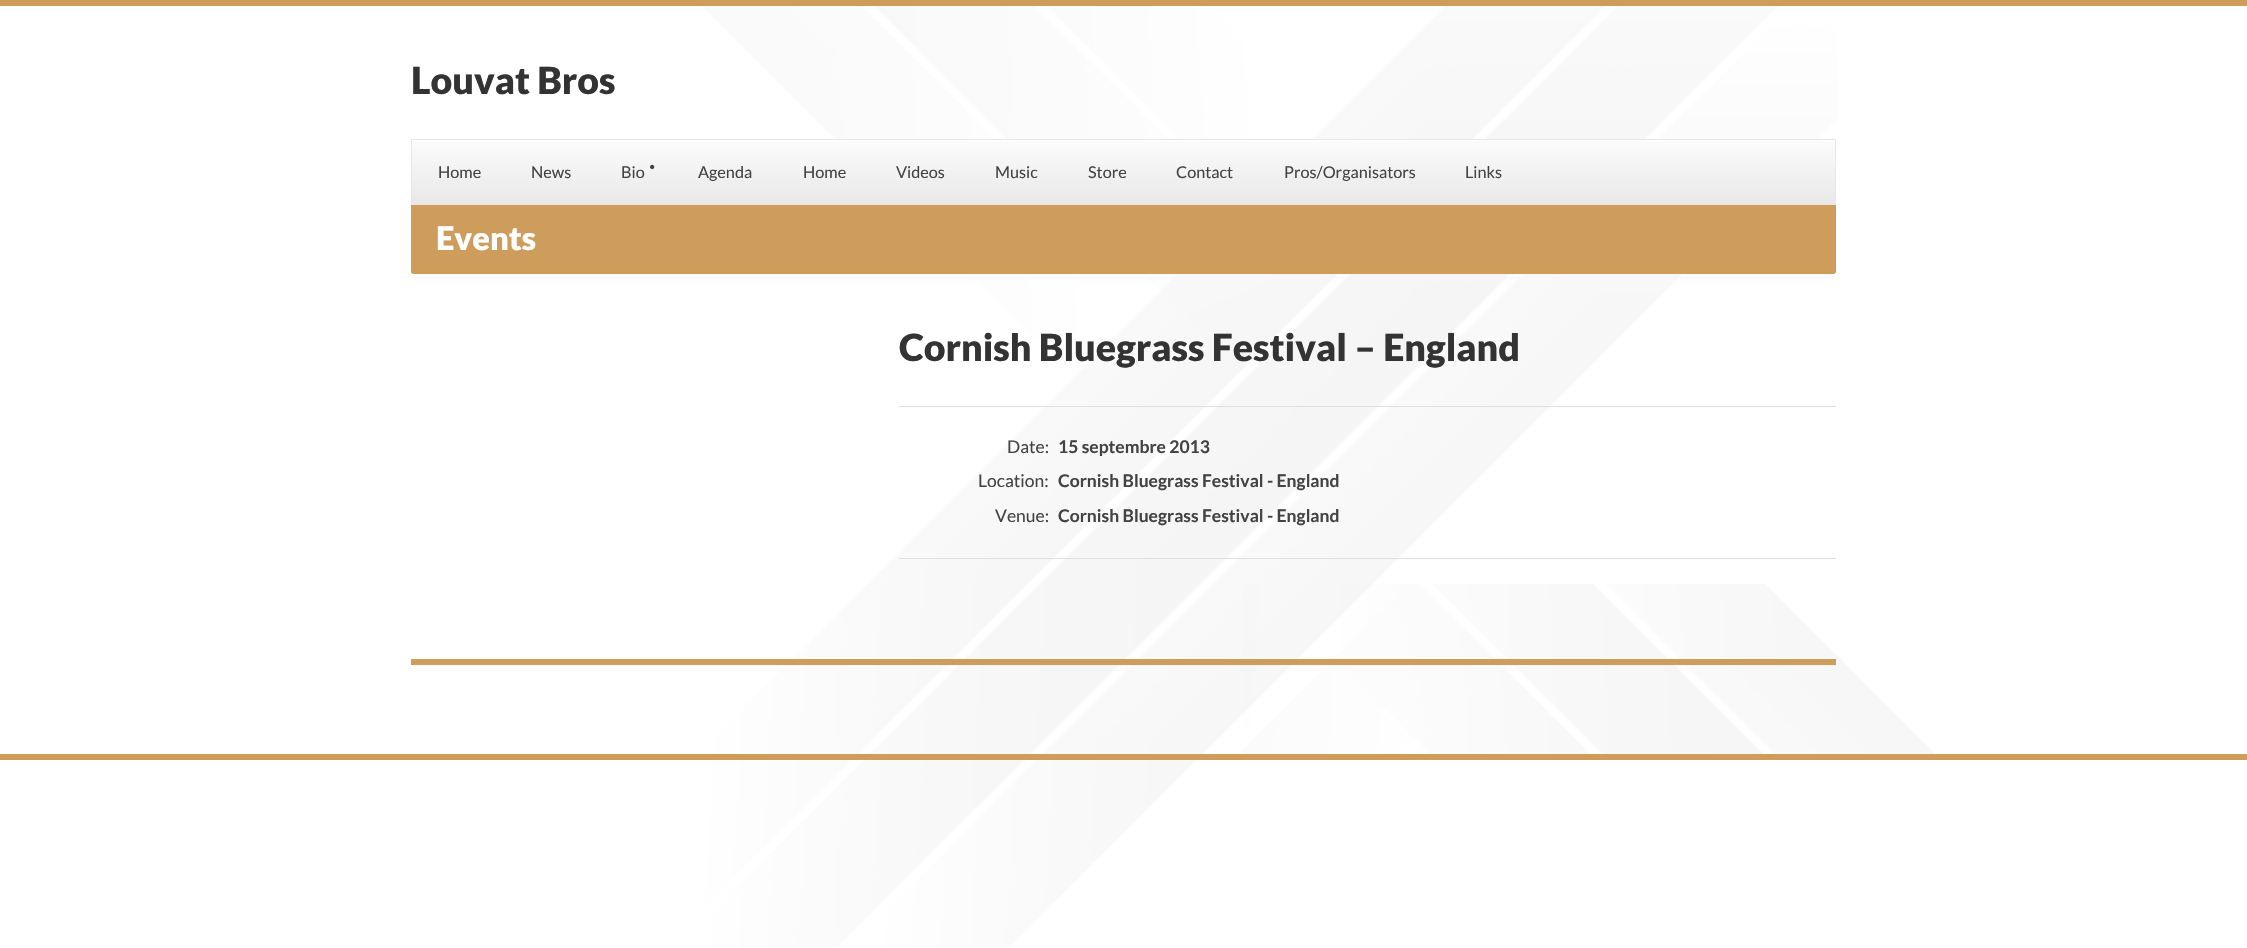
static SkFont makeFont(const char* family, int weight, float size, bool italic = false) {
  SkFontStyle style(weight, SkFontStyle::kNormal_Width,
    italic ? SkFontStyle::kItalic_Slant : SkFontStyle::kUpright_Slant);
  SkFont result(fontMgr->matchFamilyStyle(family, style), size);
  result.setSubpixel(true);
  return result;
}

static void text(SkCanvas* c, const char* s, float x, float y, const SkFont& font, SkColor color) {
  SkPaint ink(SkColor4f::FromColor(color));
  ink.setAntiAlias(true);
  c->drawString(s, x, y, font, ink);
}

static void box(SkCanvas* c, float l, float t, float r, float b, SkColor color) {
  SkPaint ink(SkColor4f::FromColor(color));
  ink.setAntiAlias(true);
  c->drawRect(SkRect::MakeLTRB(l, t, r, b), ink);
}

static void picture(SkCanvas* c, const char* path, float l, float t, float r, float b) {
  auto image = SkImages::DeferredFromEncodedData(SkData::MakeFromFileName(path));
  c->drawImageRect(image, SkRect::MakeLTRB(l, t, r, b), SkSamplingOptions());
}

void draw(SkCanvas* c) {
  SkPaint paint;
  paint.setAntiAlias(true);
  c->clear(0xffffffff);
  picture(c, "img_01.png", 703, 6, 1837, 948);
  box(c, 0, 0, 2247, 6, 0xffce9d5c);
  box(c, 0, 754, 2247, 760, 0xffce9d5c);
  SkFont face1 = makeFont("Lato", 900, 37.5f);
  text(c, "Louvat Bros", 411, 94, face1, 0xff333333);
  {
    const SkColor colors[] = {0xfffcfcfc, 0xffe8e8e8};
    const float stops[] = {0, 1};
    const SkPoint ends[] = {{1124, 140}, {1124, 204}};
    paint.setShader(SkGradientShader::MakeLinear(ends, colors, stops, 2, SkTileMode::kClamp));
    paint.setAlpha(255);
  }
  c->drawRect(SkRect::MakeLTRB(412, 140, 1835, 204), paint);
  paint.setStyle(SkPaint::kStroke_Style);
  paint.setStrokeWidth(1);
  paint.setShader(nullptr);
  paint.setColor(0xffe7e7e7);
  c->drawRect(SkRect::MakeLTRB(411.5f, 139.5f, 1835.5f, 204.5f), paint);
  SkFont face2 = makeFont("Lato", 400, 16.25f);
  text(c, "Home", 438, 178, face2, 0xff434343);
  text(c, "News", 531, 178, face2, 0xff434343);
  text(c, "Bio", 621, 178, face2, 0xff434343);
  picture(c, "img_02.png", 650, 164, 655, 170);
  text(c, "Agenda", 698, 178, face2, 0xff434343);
  text(c, "Home", 803, 178, face2, 0xff434343);
  text(c, "Videos", 896, 178, face2, 0xff434343);
  text(c, "Music", 995, 178, face2, 0xff434343);
  text(c, "Store", 1088, 178, face2, 0xff434343);
  text(c, "Contact", 1176, 178, face2, 0xff434343);
  text(c, "Pros/Organisators", 1284, 178, face2, 0xff434343);
  text(c, "Links", 1465, 178, face2, 0xff434343);
  paint.setStyle(SkPaint::kFill_Style);
  paint.setColor(0xffce9d5c);
  c->drawPath(SkPathBuilder().moveTo(411, 205).lineTo(1836, 205).lineTo(1836, 271.5f).cubicTo(1836, 273, 1835, 274, 1833.5f, 274).lineTo(413.5f, 274).cubicTo(412, 274, 411, 273, 411, 271.5f).close().detach(), paint);
  SkFont face3 = makeFont("Lato", 900, 32.5f);
  text(c, "Events", 436, 250, face3, 0xffffffff);
  text(c, "Cornish Bluegrass Festival – England", 899, 361, face1, 0xff333333);
  box(c, 899, 406, 1836, 407, 0xffdfdfdf);
  box(c, 899, 558, 1836, 559, 0xffdfdfdf);
  SkFont face4 = makeFont("Lato", 400, 17.5f);
  text(c, "Date:", 1007, 453, face4, 0xff434343);
  SkFont face5 = makeFont("Lato", 700, 17.5f);
  text(c, "15 septembre 2013", 1058, 453, face5, 0xff434343);
  text(c, "Location:", 978, 487, face4, 0xff434343);
  text(c, "Cornish Bluegrass Festival - England", 1058, 487, face5, 0xff434343);
  text(c, "Venue:", 995, 522, face4, 0xff434343);
  text(c, "Cornish Bluegrass Festival - England", 1058, 522, face5, 0xff434343);
  picture(c, "img_03.png", 1242, 584, 1934, 754);
  box(c, 411, 659, 1836, 665, 0xffce9d5c);
}
